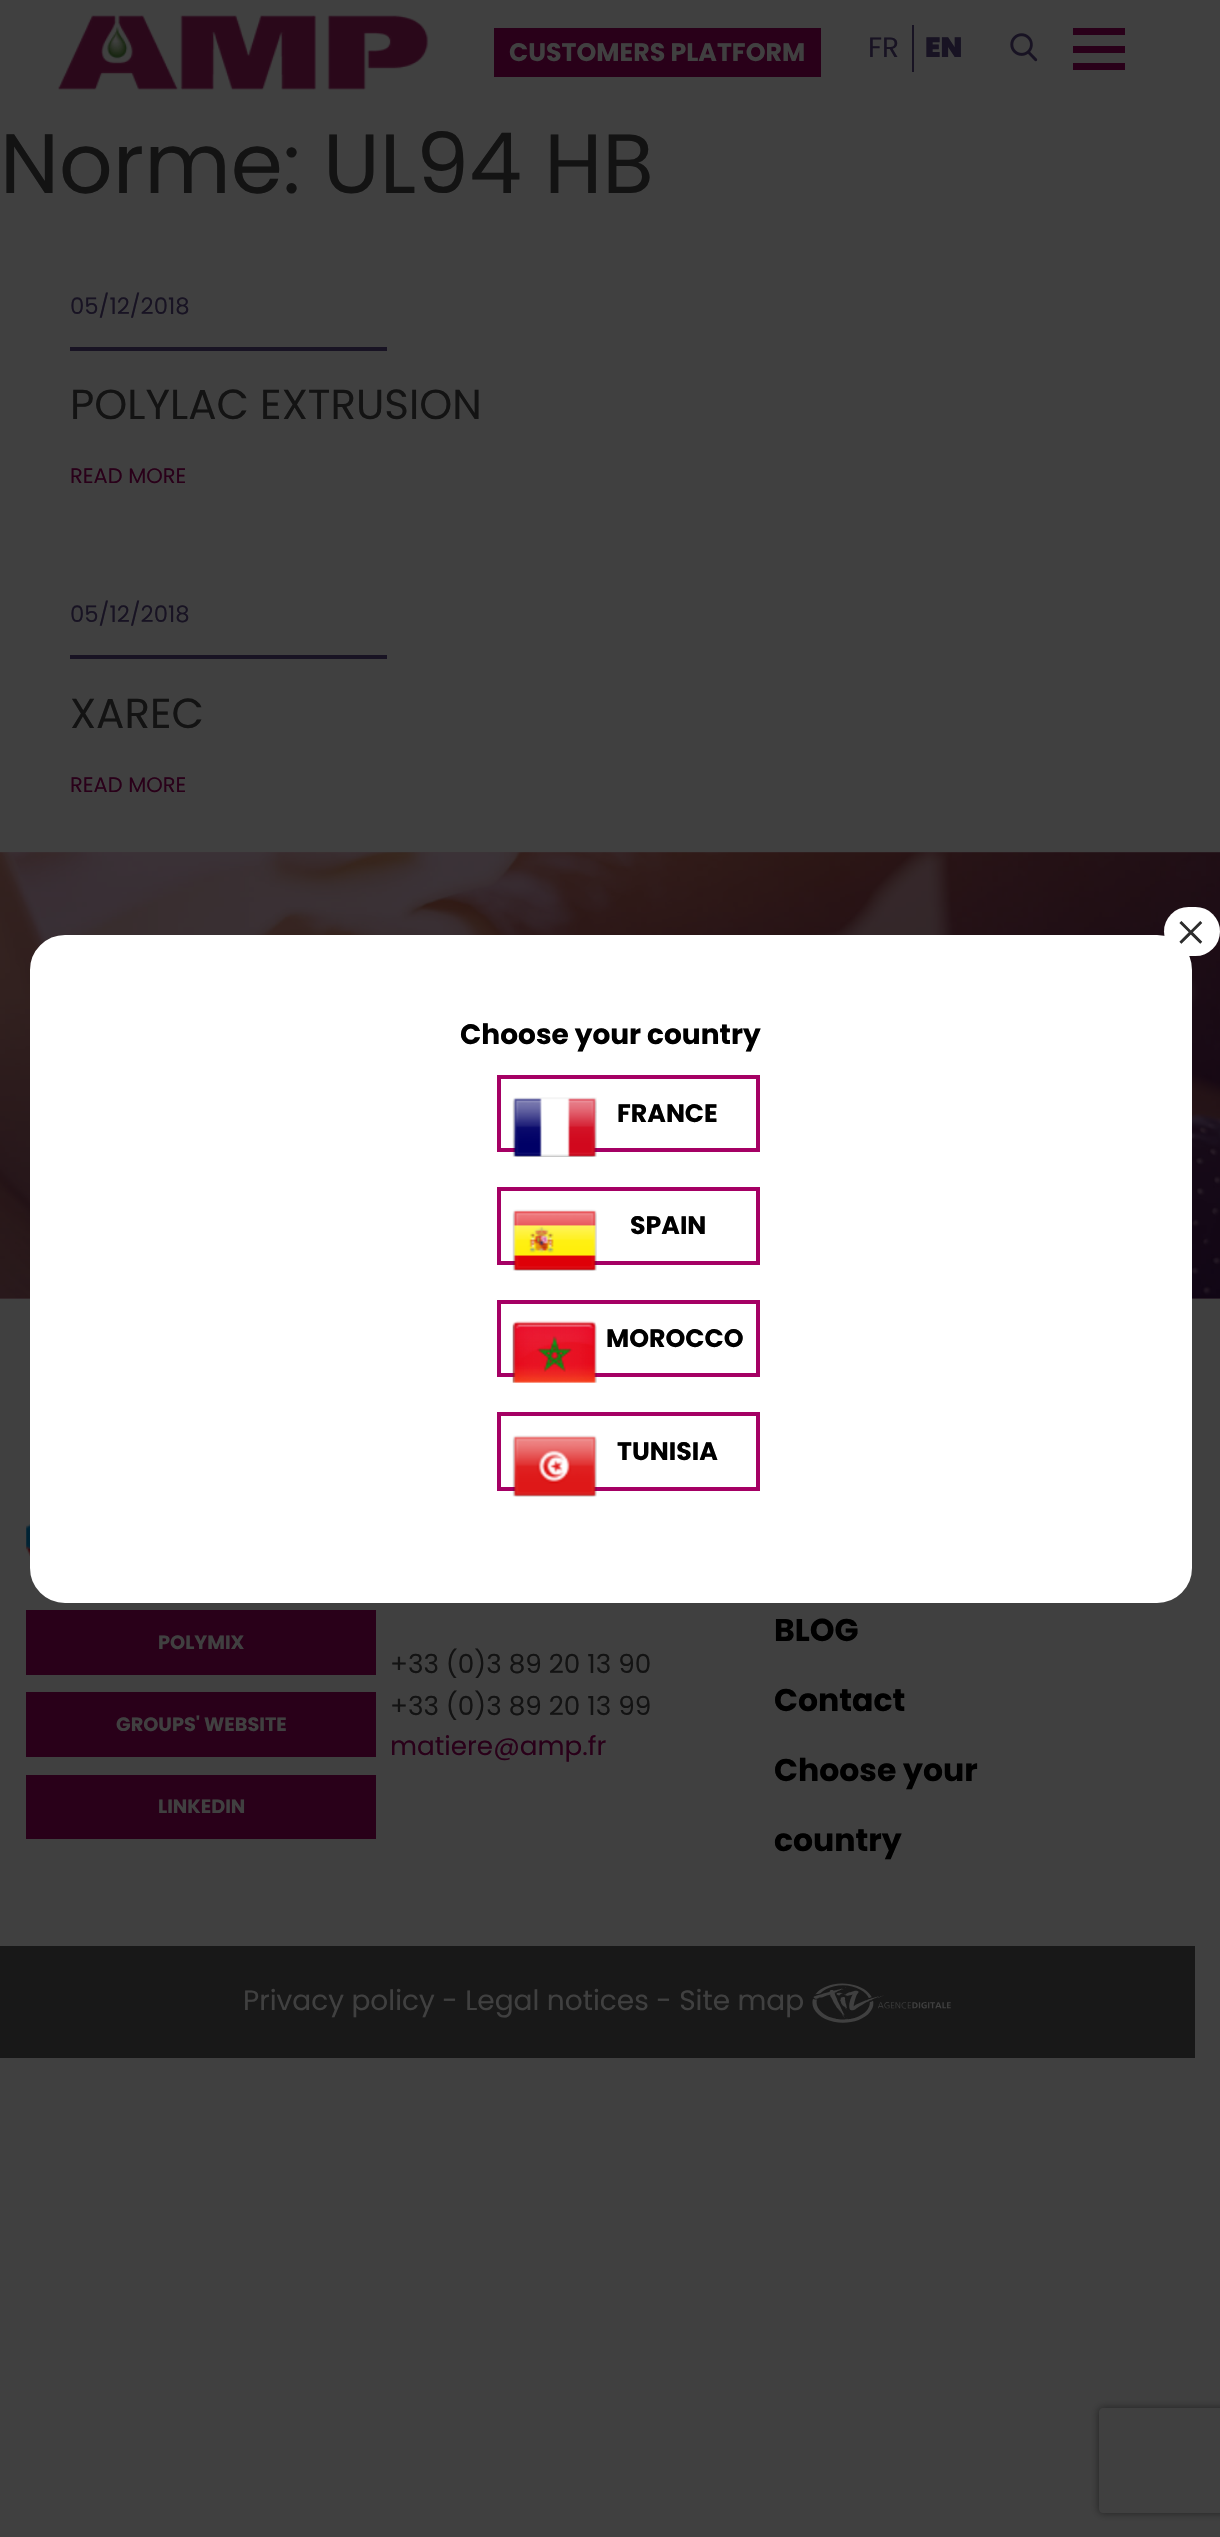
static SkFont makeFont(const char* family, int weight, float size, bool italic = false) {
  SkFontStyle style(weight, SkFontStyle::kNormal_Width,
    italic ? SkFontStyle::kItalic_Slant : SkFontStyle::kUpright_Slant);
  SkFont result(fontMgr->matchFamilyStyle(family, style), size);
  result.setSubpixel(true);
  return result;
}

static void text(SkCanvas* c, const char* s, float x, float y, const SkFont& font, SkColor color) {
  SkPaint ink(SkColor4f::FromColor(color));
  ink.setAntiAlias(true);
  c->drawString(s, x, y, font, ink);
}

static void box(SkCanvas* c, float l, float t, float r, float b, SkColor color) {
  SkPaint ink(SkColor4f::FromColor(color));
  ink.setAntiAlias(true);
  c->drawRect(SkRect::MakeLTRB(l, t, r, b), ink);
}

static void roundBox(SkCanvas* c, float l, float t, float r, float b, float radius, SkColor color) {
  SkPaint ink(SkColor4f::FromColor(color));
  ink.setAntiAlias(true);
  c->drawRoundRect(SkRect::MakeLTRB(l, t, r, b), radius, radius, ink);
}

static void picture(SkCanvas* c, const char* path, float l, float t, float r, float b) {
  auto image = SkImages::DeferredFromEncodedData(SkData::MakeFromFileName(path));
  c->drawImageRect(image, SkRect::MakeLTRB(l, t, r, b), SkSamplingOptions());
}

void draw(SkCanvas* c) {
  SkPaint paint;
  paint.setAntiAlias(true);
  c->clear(0xff404040);
  box(c, 0, 852, 1220, 1299, 0xff3b3338);
  picture(c, "img_01.png", 58, 15, 429, 90);
  box(c, 494, 28, 821, 77, 0xff290019);
  SkFont face1 = makeFont("Poppins", 700, 25.25f);
  text(c, "CUSTOMERS PLATFORM", 509, 61, face1, 0xff404040);
  SkFont face2 = makeFont("Poppins", 400, 28);
  text(c, "FR", 868, 57, face2, 0xff181323);
  box(c, 912, 25, 914, 72, 0xff181323);
  SkFont face3 = makeFont("Poppins", 900, 28);
  text(c, "EN", 925, 57, face3, 0xff181323);
  picture(c, "img_02.png", 1010, 33, 1038, 62);
  box(c, 1073, 28, 1125, 35, 0xff290019);
  box(c, 1073, 46, 1125, 53, 0xff290019);
  box(c, 1073, 63, 1125, 70, 0xff290019);
  SkFont face4 = makeFont("Poppins", 400, 84);
  text(c, "Norme: UL94 HB", 0, 193, face4, 0xff131313);
  SkFont face5 = makeFont("Poppins", 400, 22.75f);
  text(c, "05/12/2018", 70, 314, face5, 0xff181323);
  box(c, 70, 347, 387, 351, 0xff181323);
  SkFont face6 = makeFont("Poppins", 400, 42);
  text(c, "POLYLAC EXTRUSION", 70, 419, face6, 0xff131313);
  SkFont face7 = makeFont("Poppins", 400, 21);
  text(c, "READ MORE", 70, 483, face7, 0xff290019);
  text(c, "05/12/2018", 70, 622, face5, 0xff181323);
  box(c, 70, 655, 387, 659, 0xff181323);
  text(c, "XAREC", 70, 728, face6, 0xff131313);
  text(c, "READ MORE", 70, 792, face7, 0xff290019);
  picture(c, "img_03.png", 0, 852, 1220, 1299);
  paint.setColor(0xffffffff);
  c->drawRoundRect(SkRect::MakeLTRB(42.5f, 947.5f, 1179.5f, 1590.5f), 22.5f, 22.5f, paint);
  paint.setStyle(SkPaint::kStroke_Style);
  paint.setStrokeWidth(25);
  c->drawRoundRect(SkRect::MakeLTRB(42.5f, 947.5f, 1179.5f, 1590.5f), 22.5f, 22.5f, paint);
  roundBox(c, 1164, 907, 1220, 956, 24.5f, 0xffffffff);
  SkFont face8 = makeFont("Liberation Serif", 400, 56);
  text(c, "×", 1175, 951, face8, 0xff2d2d2d);
  SkFont face9 = makeFont("Poppins", 700, 28);
  text(c, "Choose your country", 460, 1044, face9, 0xff000000);
  paint.setStrokeWidth(4);
  paint.setColor(0xffa50064);
  c->drawRect(SkRect::MakeLTRB(499, 1077, 758, 1150), paint);
  picture(c, "img_04.png", 512, 1097, 597, 1157);
  text(c, "FRANCE", 617, 1122, face1, 0xff000000);
  c->drawRect(SkRect::MakeLTRB(499, 1189, 758, 1263), paint);
  picture(c, "img_05.png", 512, 1209, 597, 1271);
  text(c, "SPAIN", 630, 1234, face1, 0xff000000);
  c->drawRect(SkRect::MakeLTRB(499, 1302, 758, 1375), paint);
  picture(c, "img_06.png", 512, 1320, 597, 1383);
  text(c, "MOROCCO", 606, 1347, face1, 0xff000000);
  c->drawRect(SkRect::MakeLTRB(499, 1414, 758, 1489), paint);
  picture(c, "img_07.png", 512, 1435, 597, 1497);
  text(c, "TUNISIA", 617, 1460, face1, 0xff000000);
  picture(c, "img_08.png", 26, 1524, 30, 1557);
  box(c, 26, 1610, 376, 1675, 0xff290019);
  SkFont face10 = makeFont("Poppins", 700, 19.25f);
  text(c, "POLYMIX", 158, 1649, face10, 0xff404040);
  box(c, 26, 1692, 376, 1757, 0xff290019);
  text(c, "GROUPS' WEBSITE", 116, 1731, face10, 0xff404040);
  box(c, 26, 1775, 376, 1839, 0xff290019);
  text(c, "LINKEDIN", 158, 1813, face10, 0xff404040);
  SkFont face11 = makeFont("Poppins", 400, 26.25f);
  text(c, "+33 (0)3 89 20 13 90", 390, 1673, face11, 0xff131313);
  text(c, "+33 (0)3 89 20 13 99", 390, 1715, face11, 0xff131313);
  text(c, "matiere@amp.fr", 390, 1755, face11, 0xff290019);
  SkFont face12 = makeFont("Poppins", 700, 31.5f);
  text(c, "BLOG", 774, 1641, face12, 0xff000000);
  text(c, "Contact", 774, 1711, face12, 0xff000000);
  text(c, "Choose your", 774, 1781, face12, 0xff000000);
  text(c, "country", 774, 1851, face12, 0xff000000);
  box(c, 0, 1946, 1195, 2058, 0xff181818);
  text(c, "Privacy policy - Legal notices - Site map", 243, 2010, face2, 0xff404040);
  picture(c, "img_09.png", 812, 1983, 951, 2023);
  c->save();
  c->clipPath(SkPathBuilder(SkPathFillType::kEvenOdd).moveTo(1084, 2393).lineTo(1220, 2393).lineTo(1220, 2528).lineTo(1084, 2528).close().moveTo(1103, 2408).lineTo(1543, 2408).cubicTo(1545, 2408, 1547, 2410, 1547, 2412).lineTo(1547, 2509).cubicTo(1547, 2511, 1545, 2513, 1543, 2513).lineTo(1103, 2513).cubicTo(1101, 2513, 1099, 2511, 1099, 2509).lineTo(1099, 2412).cubicTo(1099, 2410, 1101, 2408, 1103, 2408).close().detach(), true);
  paint.setStyle(SkPaint::kFill_Style);
  paint.setColor(0xff202020);
  paint.setMaskFilter(SkMaskFilter::MakeBlur(kNormal_SkBlurStyle, 4.5f));
  c->drawRoundRect(SkRect::MakeLTRB(1099, 2408, 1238, 2513), 4, 4, paint);
  paint.setMaskFilter(nullptr);
  c->restore();
}
